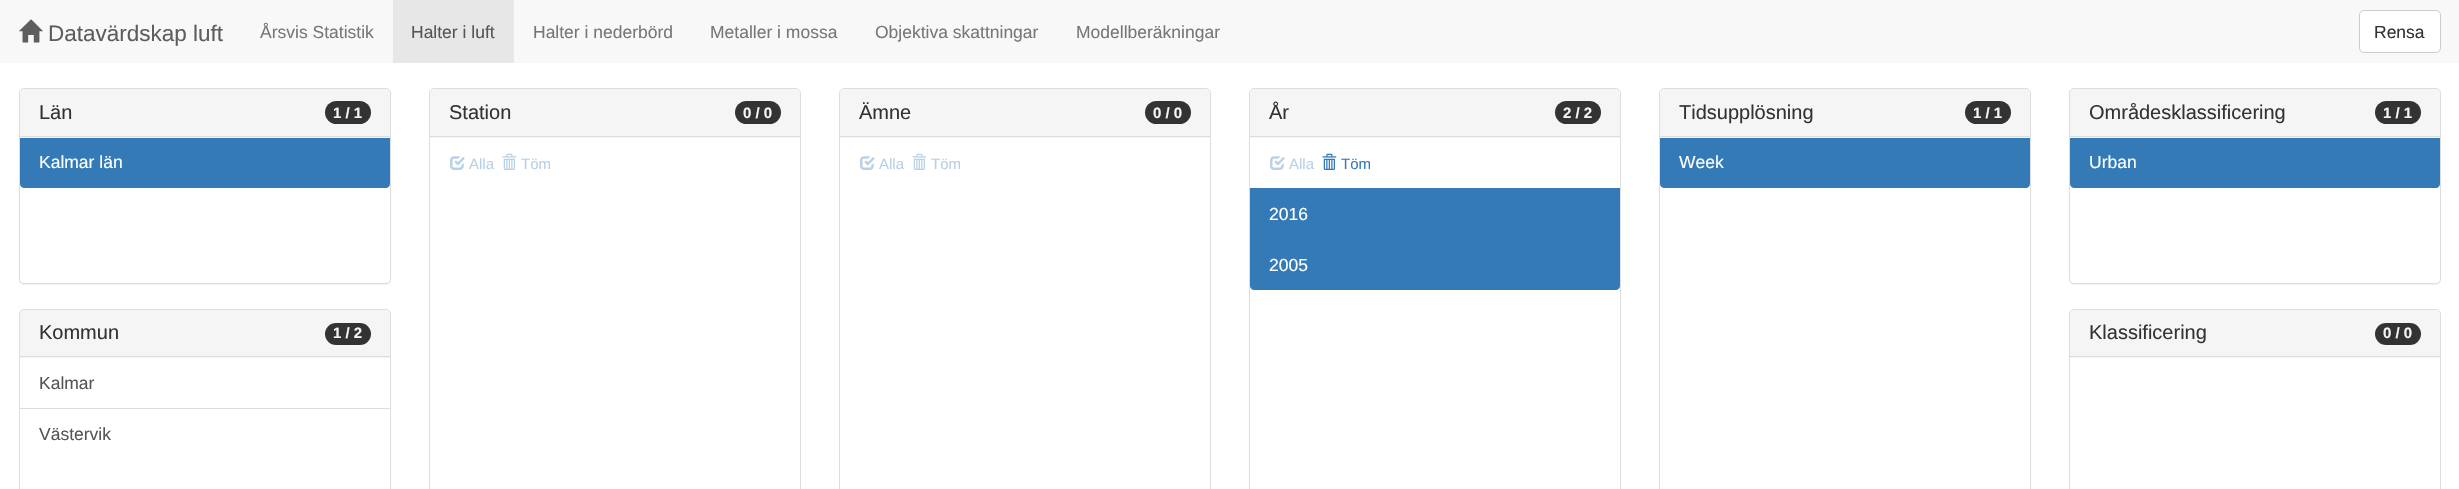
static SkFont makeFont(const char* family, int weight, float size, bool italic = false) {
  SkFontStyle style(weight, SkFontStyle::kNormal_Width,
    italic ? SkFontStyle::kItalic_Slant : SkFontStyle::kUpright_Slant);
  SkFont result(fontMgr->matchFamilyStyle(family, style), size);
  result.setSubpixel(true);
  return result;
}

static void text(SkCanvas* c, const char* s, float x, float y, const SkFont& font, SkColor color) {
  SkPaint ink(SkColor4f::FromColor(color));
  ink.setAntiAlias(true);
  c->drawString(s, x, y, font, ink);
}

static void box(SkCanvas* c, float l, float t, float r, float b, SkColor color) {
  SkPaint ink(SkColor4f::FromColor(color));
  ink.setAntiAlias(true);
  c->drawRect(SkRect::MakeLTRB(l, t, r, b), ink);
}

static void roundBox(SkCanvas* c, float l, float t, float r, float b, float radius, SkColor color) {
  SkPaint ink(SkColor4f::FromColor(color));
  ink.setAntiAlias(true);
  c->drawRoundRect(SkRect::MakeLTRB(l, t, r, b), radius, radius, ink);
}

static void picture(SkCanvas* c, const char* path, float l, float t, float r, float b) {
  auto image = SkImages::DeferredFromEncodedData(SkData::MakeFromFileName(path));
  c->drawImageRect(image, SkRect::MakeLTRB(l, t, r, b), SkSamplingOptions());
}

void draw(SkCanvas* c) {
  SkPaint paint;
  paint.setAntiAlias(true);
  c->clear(0xffffffff);
  box(c, 0, 0, 2459, 63, 0xfff8f8f8);
  picture(c, "img_01.png", 19, 19, 43, 43);
  SkFont face1 = makeFont("Liberation Sans", 400, 22.5f);
  text(c, "Datavärdskap luft", 48, 41, face1, 0xff5e5e5e);
  SkFont face2 = makeFont("Liberation Sans", 400, 17.5f);
  text(c, "Årsvis Statistik", 260, 38, face2, 0xff777777);
  box(c, 393, 0, 514, 63, 0xffe7e7e7);
  text(c, "Halter i luft", 411, 38, face2, 0xff555555);
  text(c, "Halter i nederbörd", 533, 38, face2, 0xff777777);
  text(c, "Metaller i mossa", 710, 38, face2, 0xff777777);
  text(c, "Objektiva skattningar", 875, 38, face2, 0xff777777);
  text(c, "Modellberäkningar", 1076, 38, face2, 0xff777777);
  paint.setColor(0xffffffff);
  c->drawRoundRect(SkRect::MakeLTRB(2359.5f, 10.5f, 2440.5f, 52.5f), 4.5f, 4.5f, paint);
  paint.setStyle(SkPaint::kStroke_Style);
  paint.setStrokeWidth(1);
  paint.setColor(0xffcccccc);
  c->drawRoundRect(SkRect::MakeLTRB(2359.5f, 10.5f, 2440.5f, 52.5f), 4.5f, 4.5f, paint);
  text(c, "Rensa", 2374, 38, face2, 0xff333333);
  paint.setStyle(SkPaint::kFill_Style);
  paint.setColor(0x0d000000);
  paint.setMaskFilter(SkMaskFilter::MakeBlur(kNormal_SkBlurStyle, 0.5f));
  c->drawRoundRect(SkRect::MakeLTRB(19, 89, 391, 285), 5, 5, paint);
  paint.setMaskFilter(nullptr);
  paint.setColor(0xffffffff);
  c->drawRoundRect(SkRect::MakeLTRB(19.5f, 88.5f, 390.5f, 283.5f), 4.5f, 4.5f, paint);
  paint.setStyle(SkPaint::kStroke_Style);
  paint.setColor(0xffdddddd);
  c->drawRoundRect(SkRect::MakeLTRB(19.5f, 88.5f, 390.5f, 283.5f), 4.5f, 4.5f, paint);
  paint.setStyle(SkPaint::kFill_Style);
  paint.setColor(0xfff5f5f5);
  c->drawPath(SkPathBuilder().moveTo(24, 89).lineTo(386, 89).cubicTo(388, 89, 390, 91, 390, 93).lineTo(390, 138).lineTo(20, 138).lineTo(20, 93).cubicTo(20, 91, 22, 89, 24, 89).close().detach(), paint);
  box(c, 20, 136, 390, 137, 0xffdddddd);
  SkFont face3 = makeFont("Liberation Sans", 400, 20);
  text(c, "Län", 39, 119, face3, 0xff333333);
  roundBox(c, 325, 101, 371, 124, 11.5f, 0xff333333);
  SkFont face4 = makeFont("Liberation Sans", 700, 15);
  text(c, "1 / 1", 333, 118, face4, 0xfff5f5f5);
  paint.setColor(0xff337ab7);
  c->drawPath(SkPathBuilder().moveTo(20, 138).lineTo(390, 138).lineTo(390, 184).cubicTo(390, 186, 388, 188, 386, 188).lineTo(24, 188).cubicTo(22, 188, 20, 186, 20, 184).close().detach(), paint);
  text(c, "Kalmar län", 39, 168, face2, 0xffffffff);
  paint.setStyle(SkPaint::kStroke_Style);
  paint.setColor(0xffdddddd);
  c->drawRoundRect(SkRect::MakeLTRB(19.5f, 309.5f, 390.5f, 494.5f), 4.5f, 4.5f, paint);
  paint.setStyle(SkPaint::kFill_Style);
  paint.setColor(0xfff5f5f5);
  c->drawPath(SkPathBuilder().moveTo(24, 310).lineTo(386, 310).cubicTo(388, 310, 390, 312, 390, 314).lineTo(390, 358).lineTo(20, 358).lineTo(20, 314).cubicTo(20, 312, 22, 310, 24, 310).close().detach(), paint);
  box(c, 20, 356, 390, 357, 0xffdddddd);
  text(c, "Kommun", 39, 339, face3, 0xff333333);
  roundBox(c, 325, 323, 371, 345, 11, 0xff333333);
  text(c, "1 / 2", 333, 338, face4, 0xfff5f5f5);
  text(c, "Kalmar", 39, 389, face2, 0xff555555);
  box(c, 20, 408, 390, 409, 0xffdddddd);
  text(c, "Västervik", 39, 440, face2, 0xff555555);
  paint.setStyle(SkPaint::kStroke_Style);
  paint.setColor(0xffdddddd);
  c->drawRoundRect(SkRect::MakeLTRB(429.5f, 88.5f, 800.5f, 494.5f), 4.5f, 4.5f, paint);
  paint.setStyle(SkPaint::kFill_Style);
  paint.setColor(0xfff5f5f5);
  c->drawPath(SkPathBuilder().moveTo(434, 89).lineTo(796, 89).cubicTo(798, 89, 800, 91, 800, 93).lineTo(800, 138).lineTo(430, 138).lineTo(430, 93).cubicTo(430, 91, 432, 89, 434, 89).close().detach(), paint);
  box(c, 430, 136, 800, 137, 0xffdddddd);
  text(c, "Station", 449, 119, face3, 0xff333333);
  roundBox(c, 735, 101, 781, 124, 11.5f, 0xff333333);
  text(c, "0 / 0", 743, 118, face4, 0xfff5f5f5);
  picture(c, "img_02.png", 450, 156, 465, 170);
  SkFont face5 = makeFont("Liberation Sans", 400, 15);
  text(c, "Alla", 469, 169, face5, 0xffb8d0e6);
  picture(c, "img_03.png", 502, 153, 517, 170);
  text(c, "Töm", 521, 169, face5, 0xffb8d0e6);
  paint.setStyle(SkPaint::kStroke_Style);
  paint.setColor(0xffdddddd);
  c->drawRoundRect(SkRect::MakeLTRB(839.5f, 88.5f, 1210.5f, 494.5f), 4.5f, 4.5f, paint);
  paint.setStyle(SkPaint::kFill_Style);
  paint.setColor(0xfff5f5f5);
  c->drawPath(SkPathBuilder().moveTo(844, 89).lineTo(1206, 89).cubicTo(1208, 89, 1210, 91, 1210, 93).lineTo(1210, 138).lineTo(840, 138).lineTo(840, 93).cubicTo(840, 91, 842, 89, 844, 89).close().detach(), paint);
  box(c, 840, 136, 1210, 137, 0xffdddddd);
  text(c, "Ämne", 859, 119, face3, 0xff333333);
  roundBox(c, 1145, 101, 1191, 124, 11.5f, 0xff333333);
  text(c, "0 / 0", 1153, 118, face4, 0xfff5f5f5);
  picture(c, "img_02.png", 860, 156, 875, 170);
  text(c, "Alla", 879, 169, face5, 0xffb8d0e6);
  picture(c, "img_03.png", 912, 153, 927, 170);
  text(c, "Töm", 931, 169, face5, 0xffb8d0e6);
  paint.setStyle(SkPaint::kStroke_Style);
  paint.setColor(0xffdddddd);
  c->drawRoundRect(SkRect::MakeLTRB(1249.5f, 88.5f, 1620.5f, 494.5f), 4.5f, 4.5f, paint);
  paint.setStyle(SkPaint::kFill_Style);
  paint.setColor(0xfff5f5f5);
  c->drawPath(SkPathBuilder().moveTo(1254, 89).lineTo(1616, 89).cubicTo(1618, 89, 1620, 91, 1620, 93).lineTo(1620, 138).lineTo(1250, 138).lineTo(1250, 93).cubicTo(1250, 91, 1252, 89, 1254, 89).close().detach(), paint);
  box(c, 1250, 136, 1620, 137, 0xffdddddd);
  text(c, "År", 1269, 119, face3, 0xff333333);
  roundBox(c, 1555, 101, 1601, 124, 11.5f, 0xff333333);
  text(c, "2 / 2", 1563, 118, face4, 0xfff5f5f5);
  picture(c, "img_02.png", 1270, 156, 1285, 170);
  text(c, "Alla", 1289, 169, face5, 0xffb8d0e6);
  picture(c, "img_04.png", 1322, 153, 1337, 170);
  text(c, "Töm", 1341, 169, face5, 0xff337ab7);
  box(c, 1250, 188, 1620, 239, 0xff337ab7);
  text(c, "2016", 1269, 220, face2, 0xffffffff);
  paint.setColor(0xff337ab7);
  c->drawPath(SkPathBuilder().moveTo(1250, 239).lineTo(1620, 239).lineTo(1620, 286).cubicTo(1620, 288, 1618, 290, 1616, 290).lineTo(1254, 290).cubicTo(1252, 290, 1250, 288, 1250, 286).close().detach(), paint);
  text(c, "2005", 1269, 271, face2, 0xffffffff);
  paint.setStyle(SkPaint::kStroke_Style);
  paint.setColor(0xffdddddd);
  c->drawRoundRect(SkRect::MakeLTRB(1659.5f, 88.5f, 2030.5f, 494.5f), 4.5f, 4.5f, paint);
  paint.setStyle(SkPaint::kFill_Style);
  paint.setColor(0xfff5f5f5);
  c->drawPath(SkPathBuilder().moveTo(1664, 89).lineTo(2026, 89).cubicTo(2028, 89, 2030, 91, 2030, 93).lineTo(2030, 138).lineTo(1660, 138).lineTo(1660, 93).cubicTo(1660, 91, 1662, 89, 1664, 89).close().detach(), paint);
  box(c, 1660, 136, 2030, 137, 0xffdddddd);
  text(c, "Tidsupplösning", 1679, 119, face3, 0xff333333);
  roundBox(c, 1965, 101, 2011, 124, 11.5f, 0xff333333);
  text(c, "1 / 1", 1973, 118, face4, 0xfff5f5f5);
  paint.setColor(0xff337ab7);
  c->drawPath(SkPathBuilder().moveTo(1660, 138).lineTo(2030, 138).lineTo(2030, 184).cubicTo(2030, 186, 2028, 188, 2026, 188).lineTo(1664, 188).cubicTo(1662, 188, 1660, 186, 1660, 184).close().detach(), paint);
  text(c, "Week", 1679, 168, face2, 0xffffffff);
  paint.setColor(0x0d000000);
  paint.setMaskFilter(SkMaskFilter::MakeBlur(kNormal_SkBlurStyle, 0.5f));
  c->drawRoundRect(SkRect::MakeLTRB(2069, 89, 2441, 285), 5, 5, paint);
  paint.setMaskFilter(nullptr);
  paint.setColor(0xffffffff);
  c->drawRoundRect(SkRect::MakeLTRB(2069.5f, 88.5f, 2440.5f, 283.5f), 4.5f, 4.5f, paint);
  paint.setStyle(SkPaint::kStroke_Style);
  paint.setColor(0xffdddddd);
  c->drawRoundRect(SkRect::MakeLTRB(2069.5f, 88.5f, 2440.5f, 283.5f), 4.5f, 4.5f, paint);
  paint.setStyle(SkPaint::kFill_Style);
  paint.setColor(0xfff5f5f5);
  c->drawPath(SkPathBuilder().moveTo(2074, 89).lineTo(2436, 89).cubicTo(2438, 89, 2440, 91, 2440, 93).lineTo(2440, 138).lineTo(2070, 138).lineTo(2070, 93).cubicTo(2070, 91, 2072, 89, 2074, 89).close().detach(), paint);
  box(c, 2070, 136, 2440, 137, 0xffdddddd);
  text(c, "Områdesklassificering", 2089, 119, face3, 0xff333333);
  roundBox(c, 2375, 101, 2421, 124, 11.5f, 0xff333333);
  text(c, "1 / 1", 2383, 118, face4, 0xfff5f5f5);
  paint.setColor(0xff337ab7);
  c->drawPath(SkPathBuilder().moveTo(2070, 138).lineTo(2440, 138).lineTo(2440, 184).cubicTo(2440, 186, 2438, 188, 2436, 188).lineTo(2074, 188).cubicTo(2072, 188, 2070, 186, 2070, 184).close().detach(), paint);
  text(c, "Urban", 2089, 168, face2, 0xffffffff);
  paint.setStyle(SkPaint::kStroke_Style);
  paint.setColor(0xffdddddd);
  c->drawRoundRect(SkRect::MakeLTRB(2069.5f, 309.5f, 2440.5f, 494.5f), 4.5f, 4.5f, paint);
  paint.setStyle(SkPaint::kFill_Style);
  paint.setColor(0xfff5f5f5);
  c->drawPath(SkPathBuilder().moveTo(2074, 310).lineTo(2436, 310).cubicTo(2438, 310, 2440, 312, 2440, 314).lineTo(2440, 358).lineTo(2070, 358).lineTo(2070, 314).cubicTo(2070, 312, 2072, 310, 2074, 310).close().detach(), paint);
  box(c, 2070, 356, 2440, 357, 0xffdddddd);
  text(c, "Klassificering", 2089, 339, face3, 0xff333333);
  roundBox(c, 2375, 323, 2421, 345, 11, 0xff333333);
  text(c, "0 / 0", 2383, 338, face4, 0xfff5f5f5);
}
